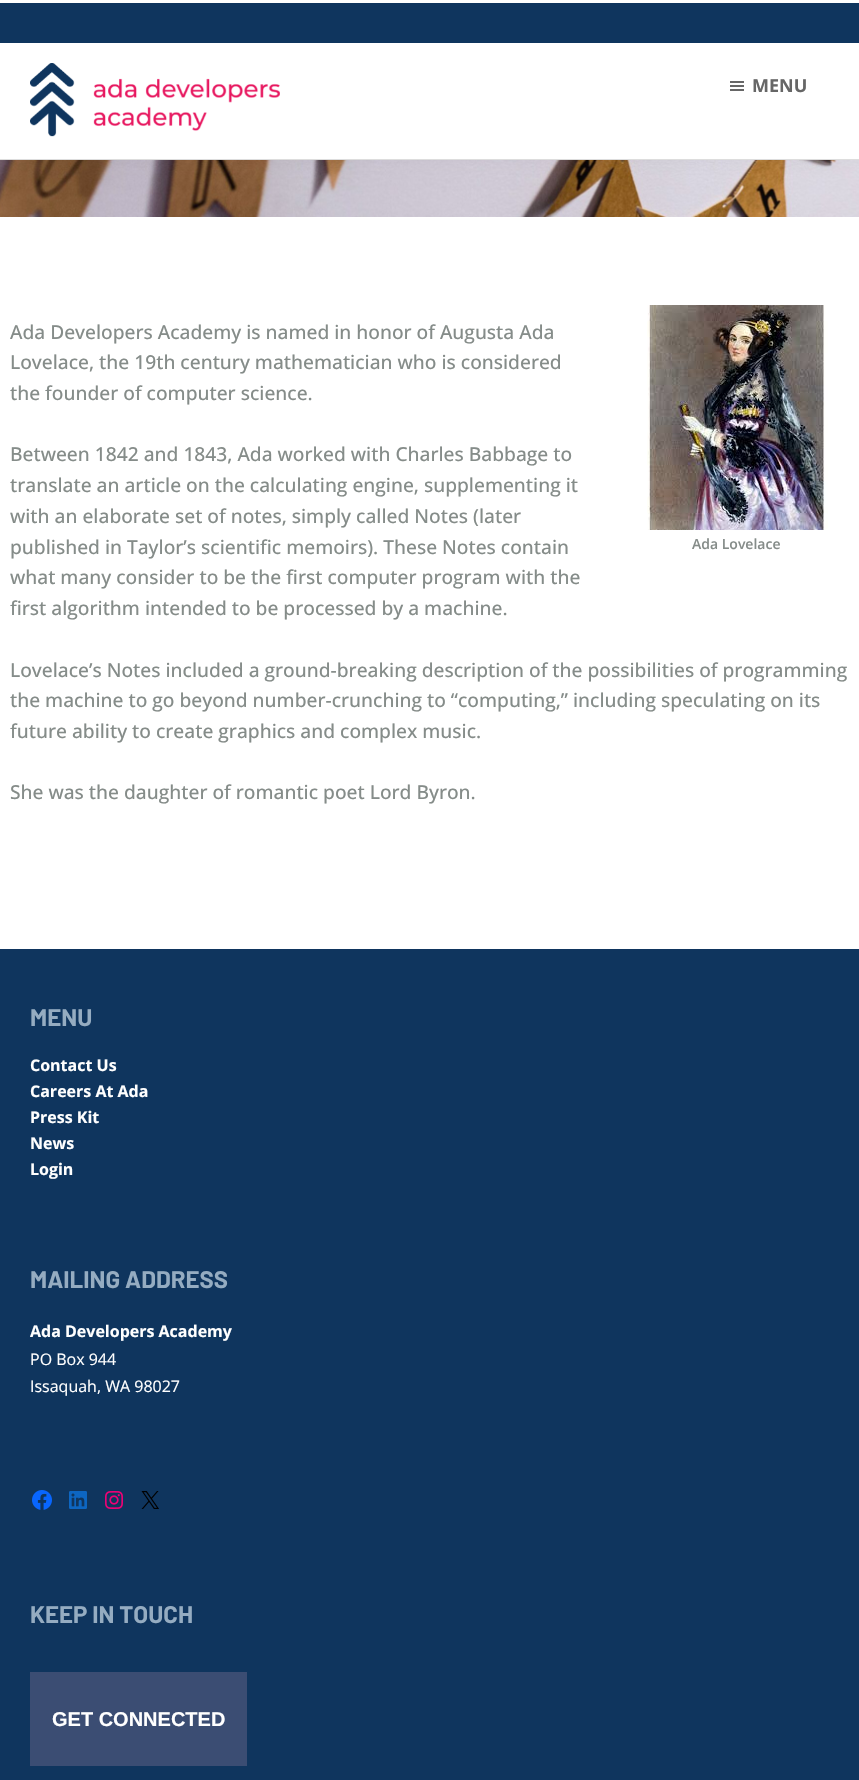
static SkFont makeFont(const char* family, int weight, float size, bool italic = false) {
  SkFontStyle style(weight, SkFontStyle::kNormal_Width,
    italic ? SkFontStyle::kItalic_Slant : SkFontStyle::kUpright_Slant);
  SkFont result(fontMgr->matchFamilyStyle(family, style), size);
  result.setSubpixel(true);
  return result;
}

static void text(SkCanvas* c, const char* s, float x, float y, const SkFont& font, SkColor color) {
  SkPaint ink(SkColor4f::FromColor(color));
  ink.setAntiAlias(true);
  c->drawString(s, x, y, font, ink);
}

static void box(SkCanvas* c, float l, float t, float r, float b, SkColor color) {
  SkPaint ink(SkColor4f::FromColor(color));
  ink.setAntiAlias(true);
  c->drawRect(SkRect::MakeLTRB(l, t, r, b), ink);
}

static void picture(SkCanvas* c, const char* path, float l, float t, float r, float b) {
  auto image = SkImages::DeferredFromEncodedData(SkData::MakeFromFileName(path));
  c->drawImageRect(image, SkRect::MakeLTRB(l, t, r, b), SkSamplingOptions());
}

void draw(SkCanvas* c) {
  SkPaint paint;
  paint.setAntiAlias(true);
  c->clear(0xffffffff);
  picture(c, "img_03.png", 0, 160, 859, 217);
  paint.setColor(0x0d000000);
  paint.setMaskFilter(SkMaskFilter::MakeBlur(kNormal_SkBlurStyle, 10));
  c->drawRect(SkRect::MakeLTRB(0, 0, 859, 160), paint);
  paint.setMaskFilter(nullptr);
  box(c, 0, 0, 859, 159, 0xffffffff);
  box(c, 0, 159, 859, 160, 0xffdddddd);
  box(c, 0, 3, 859, 43, 0xff0f355e);
  picture(c, "img_01.png", 30, 63, 280, 137);
  picture(c, "img_02.png", 730, 81, 744, 91);
  SkFont face1 = makeFont("Open Sans", 700, 18);
  text(c, "MENU", 752, 92, face1, 0xff666666);
  SkFont face2 = makeFont("Open Sans", 500, 19.2f);
  text(c, "Ada Developers Academy is named in honor of Augusta Ada", 10, 339, face2, 0xff858c89);
  text(c, "Lovelace, the 19th century mathematician who is considered", 10, 369, face2, 0xff858c89);
  text(c, "the founder of computer science.", 10, 400, face2, 0xff858c89);
  text(c, "Between 1842 and 1843, Ada worked with Charles Babbage to", 10, 461, face2, 0xff858c89);
  text(c, "translate an article on the calculating engine, supplementing it", 10, 492, face2, 0xff858c89);
  text(c, "with an elaborate set of notes, simply called Notes (later", 10, 523, face2, 0xff858c89);
  text(c, "published in Taylor’s scientific memoirs). These Notes contain", 10, 554, face2, 0xff858c89);
  text(c, "what many consider to be the first computer program with the", 10, 584, face2, 0xff858c89);
  text(c, "first algorithm intended to be processed by a machine.", 10, 615, face2, 0xff858c89);
  picture(c, "img_04.png", 647, 305, 828, 530);
  SkFont face3 = makeFont("Open Sans", 600, 14);
  text(c, "Ada Lovelace", 692, 549, face3, 0xff858c89);
  text(c, "Lovelace’s Notes included a ground-breaking description of the possibilities of programming", 10, 677, face2, 0xff858c89);
  text(c, "the machine to go beyond number-crunching to “computing,” including speculating on its", 10, 707, face2, 0xff858c89);
  text(c, "future ability to create graphics and complex music.", 10, 738, face2, 0xff858c89);
  text(c, "She was the daughter of romantic poet Lord Byron.", 10, 799, face2, 0xff858c89);
  box(c, 0, 949, 859, 1780, 0xff0f355e);
  SkFont face4 = makeFont("Barlow", 700, 24);
  text(c, "MENU", 30, 1026, face4, 0xff95acc1);
  SkFont face5 = makeFont("Open Sans", 700, 16);
  text(c, "Contact Us", 30, 1071, face5, 0xffffffff);
  text(c, "Careers At Ada", 30, 1097, face5, 0xffffffff);
  text(c, "Press Kit", 30, 1123, face5, 0xffffffff);
  text(c, "News", 30, 1149, face5, 0xffffffff);
  text(c, "Login", 30, 1175, face5, 0xffffffff);
  text(c, "MAILING ADDRESS", 30, 1288, face4, 0xff95acc1);
  text(c, "Ada Developers Academy", 30, 1337, face5, 0xffffffff);
  SkFont face6 = makeFont("Open Sans", 400, 16);
  text(c, "PO Box 944", 30, 1365, face6, 0xffffffff);
  text(c, "Issaquah, WA 98027", 30, 1392, face6, 0xffffffff);
  picture(c, "img_05.png", 32, 1490, 52, 1510);
  picture(c, "img_06.png", 69, 1491, 87, 1509);
  picture(c, "img_07.png", 105, 1491, 123, 1509);
  picture(c, "img_08.png", 141, 1491, 159, 1509);
  text(c, "KEEP IN TOUCH", 30, 1623, face4, 0xff95acc1);
  box(c, 30, 1672, 247, 1766, 0xff3b4d73);
  SkFont face7 = makeFont("Liberation Sans", 700, 20);
  text(c, "GET CONNECTED", 52, 1726, face7, 0xffffffff);
}
